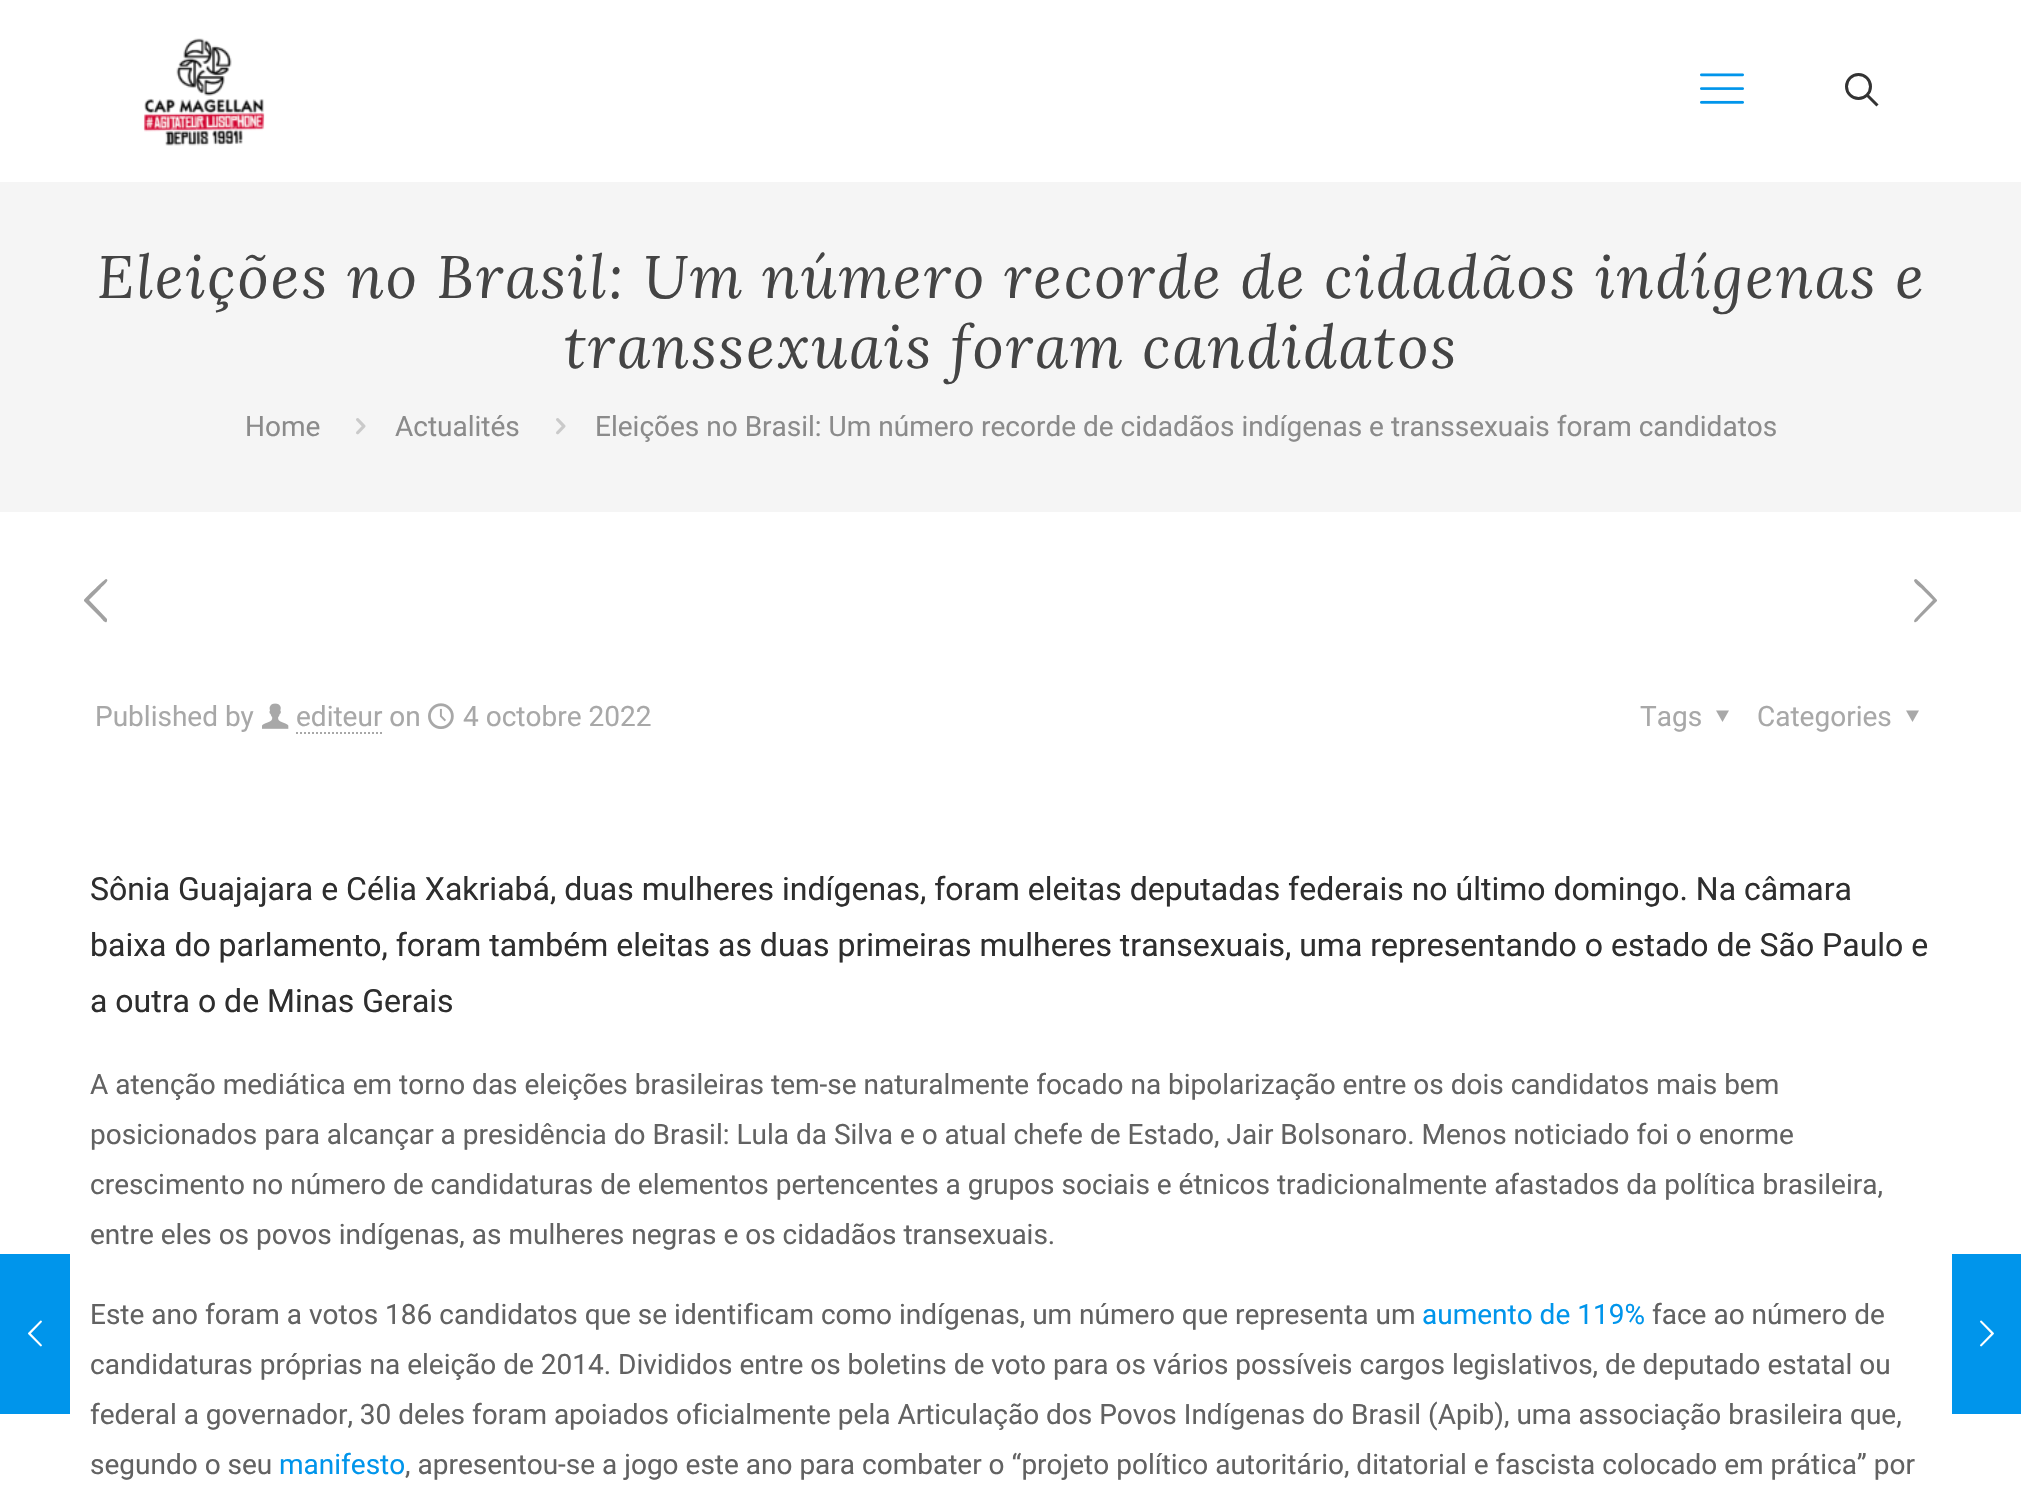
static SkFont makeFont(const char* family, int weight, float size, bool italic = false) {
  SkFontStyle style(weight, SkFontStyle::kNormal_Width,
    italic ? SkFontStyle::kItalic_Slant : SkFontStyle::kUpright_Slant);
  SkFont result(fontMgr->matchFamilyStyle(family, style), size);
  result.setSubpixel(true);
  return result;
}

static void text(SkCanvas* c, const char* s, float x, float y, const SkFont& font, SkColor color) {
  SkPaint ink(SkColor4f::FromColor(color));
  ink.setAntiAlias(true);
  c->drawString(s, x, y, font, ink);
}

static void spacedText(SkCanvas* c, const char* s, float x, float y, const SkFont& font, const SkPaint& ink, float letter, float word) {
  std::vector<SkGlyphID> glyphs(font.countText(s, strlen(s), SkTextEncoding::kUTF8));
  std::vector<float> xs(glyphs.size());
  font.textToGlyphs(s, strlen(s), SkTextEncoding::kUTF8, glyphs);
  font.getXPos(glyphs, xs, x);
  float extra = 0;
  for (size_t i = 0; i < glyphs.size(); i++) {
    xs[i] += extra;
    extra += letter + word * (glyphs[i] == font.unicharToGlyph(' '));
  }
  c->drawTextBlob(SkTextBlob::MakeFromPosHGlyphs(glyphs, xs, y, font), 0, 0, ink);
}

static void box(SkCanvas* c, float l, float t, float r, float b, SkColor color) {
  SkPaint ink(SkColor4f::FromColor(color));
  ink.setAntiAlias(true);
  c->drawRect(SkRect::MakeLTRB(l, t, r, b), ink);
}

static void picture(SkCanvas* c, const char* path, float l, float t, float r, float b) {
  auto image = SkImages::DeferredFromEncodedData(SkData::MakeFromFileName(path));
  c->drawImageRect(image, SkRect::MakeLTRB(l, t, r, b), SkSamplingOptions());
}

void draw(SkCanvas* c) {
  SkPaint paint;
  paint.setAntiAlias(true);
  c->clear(0xffffffff);
  box(c, 0, 1254, 70, 1414, 0xff0095eb);
  picture(c, "img_01.png", 28, 1320, 42, 1347);
  picture(c, "img_02.png", 143, 38, 265, 146);
  picture(c, "img_03.png", 1700, 73, 1744, 104);
  paint.setStyle(SkPaint::kStroke_Style);
  paint.setStrokeWidth(3);
  paint.setColor(0xff333333);
  c->drawCircle(1858.5f, 86.5f, 12, paint);
  c->drawPath(SkPathBuilder().moveTo(1867, 95).lineTo(1877.5f, 105.5f).detach(), paint);
  box(c, 0, 182, 2021, 512, 0xfff5f5f5);
  SkFont face1 = makeFont("Lora", 400, 60, true);
  paint.setStyle(SkPaint::kFill_Style);
  paint.setColor(0xff444444);
  spacedText(c, "Eleições no Brasil: Um número recorde de cidadãos indígenas e", 97, 298, face1, paint, 2, 0);
  spacedText(c, "transsexuais foram candidatos", 564, 368, face1, paint, 2, 0);
  SkFont face2 = makeFont("Roboto", 400, 28);
  text(c, "Home", 245, 436, face2, 0xff8b8b8b);
  picture(c, "img_04.png", 356, 418, 366, 435);
  text(c, "Actualités", 395, 436, face2, 0xff8b8b8b);
  picture(c, "img_04.png", 556, 418, 566, 435);
  text(c, "Eleições no Brasil: Um número recorde de cidadãos indígenas e transsexuais foram candidatos", 595, 436, face2, 0xff8b8b8b);
  paint.setColor(0xffa1a1a1);
  c->drawPath(SkPathBuilder().moveTo(107, 619).lineTo(107, 621).cubicTo(106, 625, 101, 618, 101, 618).lineTo(84, 601).lineTo(84, 600).cubicTo(86, 597, 105, 579, 106, 579).cubicTo(111, 580, 101, 587, 101, 588).lineTo(89, 600).close().detach(), paint);
  c->drawPath(SkPathBuilder().moveTo(1915, 619).lineTo(1933, 600).lineTo(1921, 588).cubicTo(1920, 587, 1910, 580, 1916, 579).cubicTo(1917, 579, 1935, 597, 1937, 600).lineTo(1937, 601).lineTo(1920, 618).cubicTo(1920, 618, 1915, 625, 1914, 621).close().detach(), paint);
  text(c, "Published by", 95, 726, face2, 0xffa8a8a8);
  picture(c, "img_05.png", 262, 703, 289, 729);
  text(c, "editeur on", 296, 726, face2, 0xffa8a8a8);
  paint.setStyle(SkPaint::kStroke_Style);
  paint.setStrokeWidth(2);
  paint.setColor(0xffa8a8a8);
  paint.setPathEffect(SkDashPathEffect::Make({{2, 2}}, 0));
  c->drawPath(SkPathBuilder().moveTo(296, 733).lineTo(382, 733).detach(), paint);
  paint.setPathEffect(nullptr);
  picture(c, "img_06.png", 428, 703, 454, 729);
  text(c, "4 octobre 2022", 463, 726, face2, 0xffa8a8a8);
  text(c, "Tags", 1640, 726, face2, 0xffa8a8a8);
  paint.setStyle(SkPaint::kFill_Style);
  c->drawPath(SkPathBuilder().moveTo(1729, 710.5f).lineTo(1722.5f, 722).lineTo(1716, 710.5f).close().detach(), paint);
  text(c, "Categories", 1757, 726, face2, 0xffa8a8a8);
  c->drawPath(SkPathBuilder().moveTo(1919, 710.5f).lineTo(1912.5f, 722).lineTo(1906, 710.5f).close().detach(), paint);
  SkFont face3 = makeFont("Roboto", 400, 32);
  text(c, "Sônia Guajajara e Célia Xakriabá, duas mulheres indígenas, foram eleitas deputadas federais no último domingo. Na câmara", 90, 900, face3, 0xff2e2e2e);
  text(c, "baixa do parlamento, foram também eleitas as duas primeiras mulheres transexuais, uma representando o estado de São Paulo e", 90, 956, face3, 0xff2e2e2e);
  text(c, "a outra o de Minas Gerais", 90, 1012, face3, 0xff2e2e2e);
  text(c, "A atenção mediática em torno das eleições brasileiras tem-se naturalmente focado na bipolarização entre os dois candidatos mais bem", 90, 1094, face2, 0xff626262);
  text(c, "posicionados para alcançar a presidência do Brasil: Lula da Silva e o atual chefe de Estado, Jair Bolsonaro. Menos noticiado foi o enorme", 90, 1144, face2, 0xff626262);
  text(c, "crescimento no número de candidaturas de elementos pertencentes a grupos sociais e étnicos tradicionalmente afastados da política brasileira,", 90, 1194, face2, 0xff626262);
  text(c, "entre eles os povos indígenas, as mulheres negras e os cidadãos transexuais.", 90, 1244, face2, 0xff626262);
  text(c, "Este ano foram a votos 186 candidatos que se identificam como indígenas, um número que representa um", 90, 1324, face2, 0xff626262);
  text(c, "aumento de 119%", 1422, 1324, face2, 0xff0095eb);
  text(c, "face ao número de", 1652, 1324, face2, 0xff626262);
  text(c, "candidaturas próprias na eleição de 2014. Divididos entre os boletins de voto para os vários possíveis cargos legislativos, de deputado estatal ou", 90, 1374, face2, 0xff626262);
  text(c, "federal a governador, 30 deles foram apoiados oficialmente pela Articulação dos Povos Indígenas do Brasil (Apib), uma associação brasileira que,", 90, 1424, face2, 0xff626262);
  text(c, "segundo o seu", 90, 1474, face2, 0xff626262);
  text(c, "manifesto", 279, 1474, face2, 0xff0095eb);
  text(c, ", apresentou-se a jogo este ano para combater o “projeto político autoritário, ditatorial e fascista colocado em prática” por", 405, 1474, face2, 0xff626262);
  box(c, 1952, 1254, 2021, 1414, 0xff0095eb);
  picture(c, "img_07.png", 1980, 1320, 1994, 1347);
}
